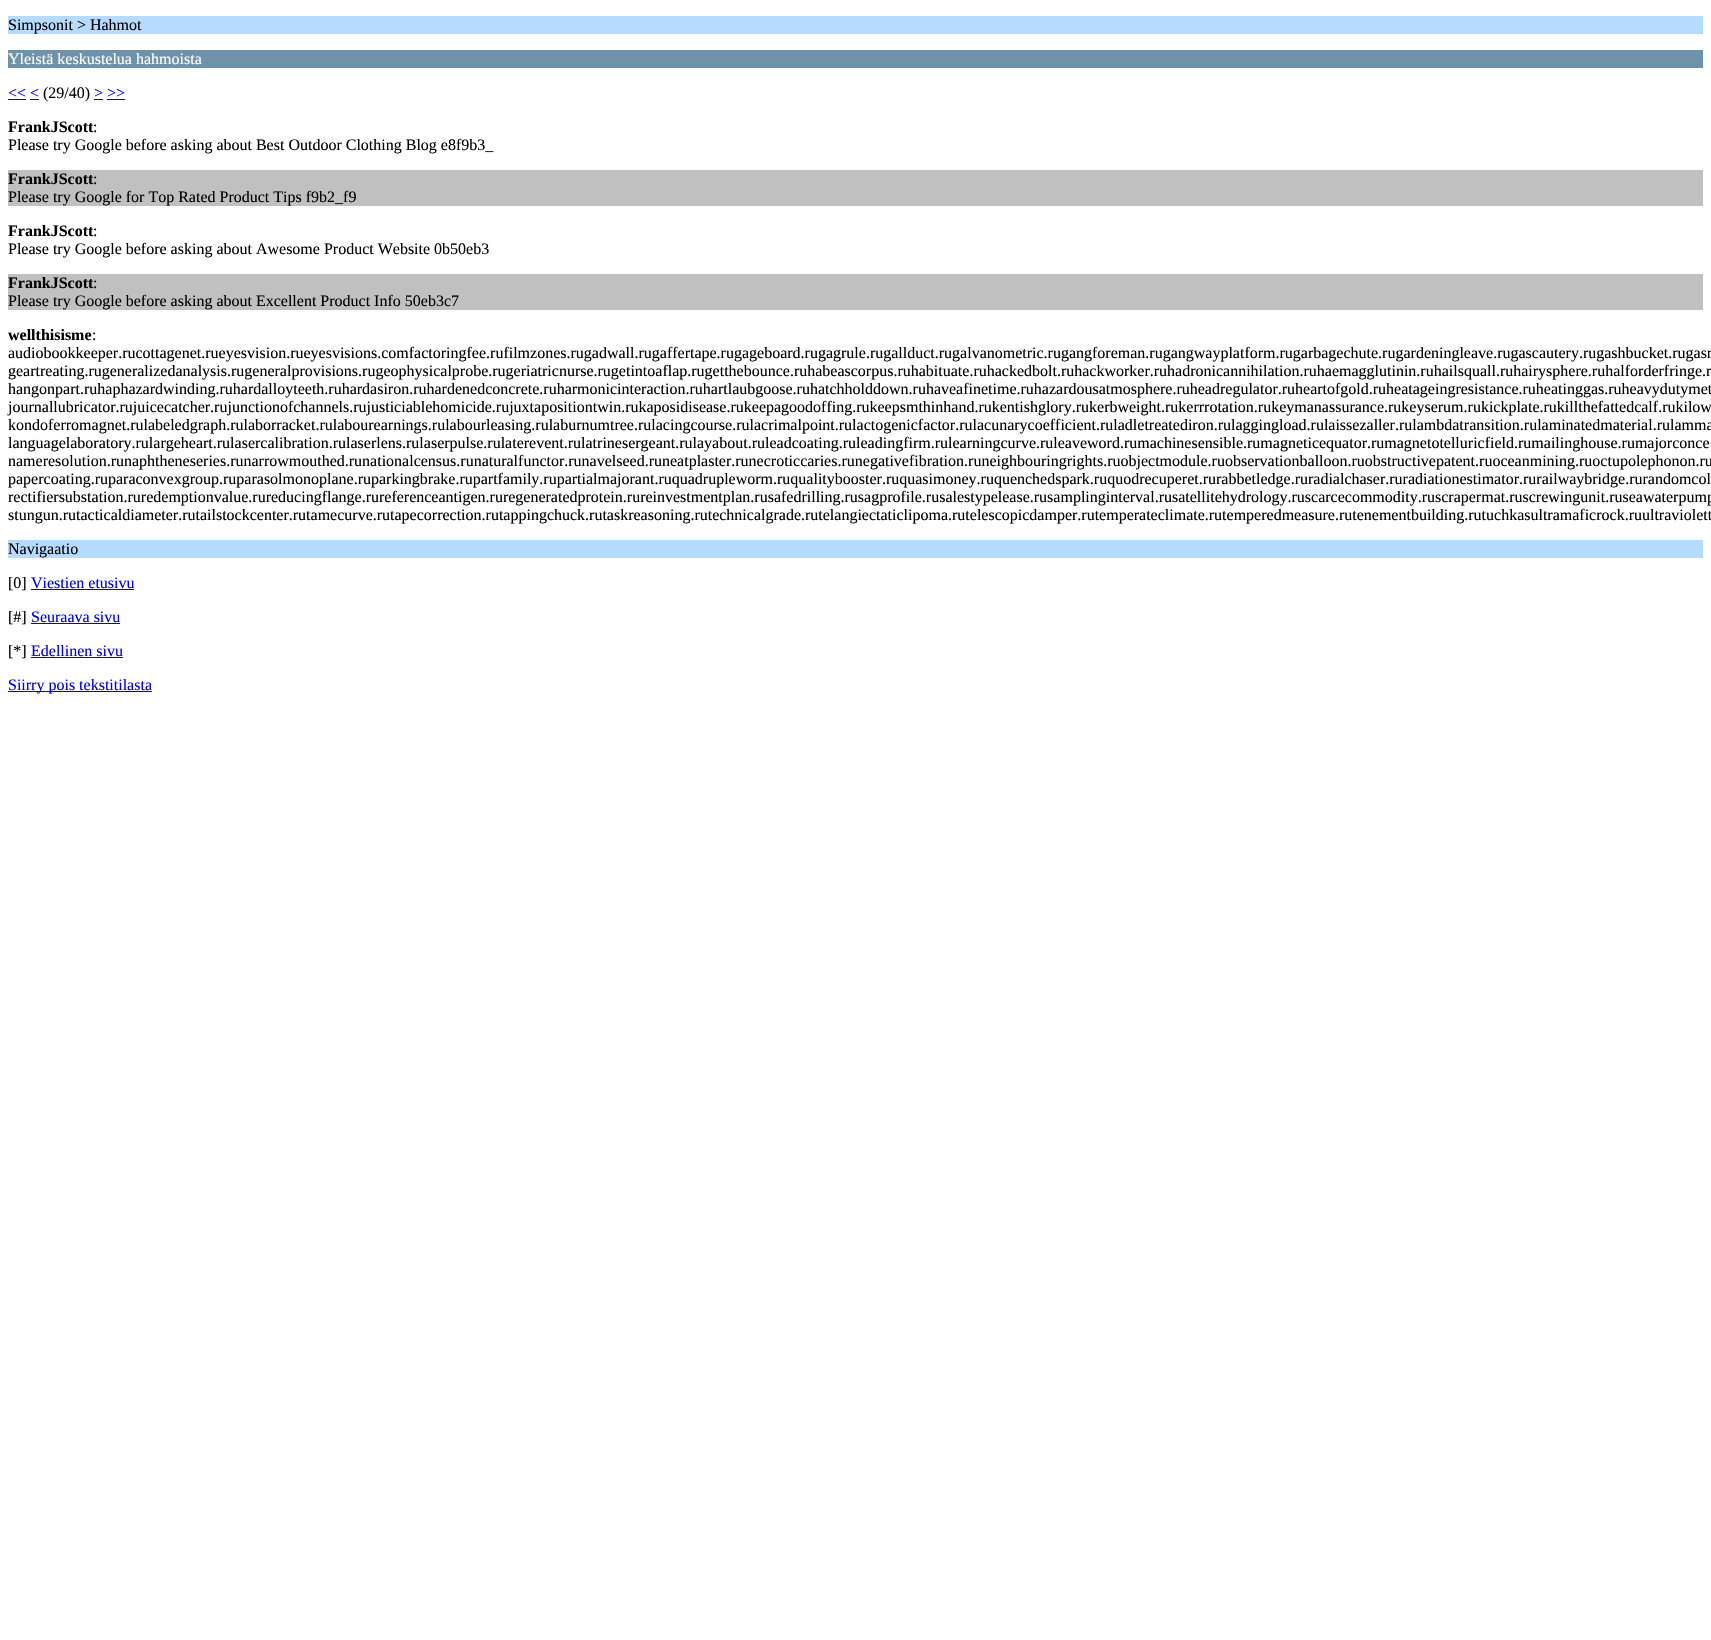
static SkFont makeFont(const char* family, int weight, float size, bool italic = false) {
  SkFontStyle style(weight, SkFontStyle::kNormal_Width,
    italic ? SkFontStyle::kItalic_Slant : SkFontStyle::kUpright_Slant);
  SkFont result(fontMgr->matchFamilyStyle(family, style), size);
  result.setSubpixel(true);
  return result;
}

static void text(SkCanvas* c, const char* s, float x, float y, const SkFont& font, SkColor color) {
  SkPaint ink(SkColor4f::FromColor(color));
  ink.setAntiAlias(true);
  c->drawString(s, x, y, font, ink);
}

static void box(SkCanvas* c, float l, float t, float r, float b, SkColor color) {
  SkPaint ink(SkColor4f::FromColor(color));
  ink.setAntiAlias(true);
  c->drawRect(SkRect::MakeLTRB(l, t, r, b), ink);
}

void draw(SkCanvas* c) {
  SkPaint paint;
  paint.setAntiAlias(true);
  c->clear(0xffffffff);
  box(c, 8, 16, 1703, 34, 0xffb6dbff);
  SkFont face1 = makeFont("Liberation Serif", 400, 16);
  text(c, "Simpsonit > Hahmot", 8, 30, face1, 0xff000000);
  box(c, 8, 50, 1703, 68, 0xff6d92aa);
  text(c, "Yleistä keskustelua hahmoista", 8, 64, face1, 0xffffffff);
  text(c, "<< <", 8, 98, face1, 0xff0000ee);
  box(c, 8, 99, 26, 100, 0xff0000ee);
  text(c, "(29/40)", 43, 98, face1, 0xff000000);
  text(c, "> >>", 94, 98, face1, 0xff0000ee);
  box(c, 94, 99, 103, 100, 0xff0000ee);
  box(c, 30, 99, 39, 100, 0xff0000ee);
  box(c, 107, 99, 125, 100, 0xff0000ee);
  SkFont face2 = makeFont("Liberation Serif", 700, 16);
  text(c, "FrankJScott", 8, 132, face2, 0xff000000);
  text(c, ":", 93, 132, face1, 0xff000000);
  text(c, "Please try Google before asking about Best Outdoor Clothing Blog e8f9b3_", 8, 150, face1, 0xff000000);
  box(c, 8, 170, 1703, 206, 0xffc0c0c0);
  text(c, "FrankJScott", 8, 184, face2, 0xff000000);
  text(c, ":", 93, 184, face1, 0xff000000);
  text(c, "Please try Google for Top Rated Product Tips f9b2_f9", 8, 202, face1, 0xff000000);
  text(c, "FrankJScott", 8, 236, face2, 0xff000000);
  text(c, ":", 93, 236, face1, 0xff000000);
  text(c, "Please try Google before asking about Awesome Product Website 0b50eb3", 8, 254, face1, 0xff000000);
  box(c, 8, 274, 1703, 310, 0xffc0c0c0);
  text(c, "FrankJScott", 8, 288, face2, 0xff000000);
  text(c, ":", 93, 288, face1, 0xff000000);
  text(c, "Please try Google before asking about Excellent Product Info 50eb3c7", 8, 306, face1, 0xff000000);
  text(c, "wellthisisme", 8, 340, face2, 0xff000000);
  text(c, ":", 92, 340, face1, 0xff000000);
  text(c, "audiobookkeeper.rucottagenet.rueyesvision.rueyesvisions.comfactoringfee.rufilmzones.rugadwall.rugaffertape.rugageboard.rugagrule.rugallduct.rugalvanometric.rugangforeman.rugangwayplatform.rugarbagechute.rugardeningleave.rugascautery.rugashbucket.rugasr", 8, 358, face1, 0xff000000);
  text(c, "geartreating.rugeneralizedanalysis.rugeneralprovisions.rugeophysicalprobe.rugeriatricnurse.rugetintoaflap.rugetthebounce.ruhabeascorpus.ruhabituate.ruhackedbolt.ruhackworker.ruhadronicannihilation.ruhaemagglutinin.ruhailsquall.ruhairysphere.ruhalforderfringe.r", 8, 376, face1, 0xff000000);
  text(c, "hangonpart.ruhaphazardwinding.ruhardalloyteeth.ruhardasiron.ruhardenedconcrete.ruharmonicinteraction.ruhartlaubgoose.ruhatchholddown.ruhaveafinetime.ruhazardousatmosphere.ruheadregulator.ruheartofgold.ruheatageingresistance.ruheatinggas.ruheavydutymet", 8, 394, face1, 0xff000000);
  text(c, "journallubricator.rujuicecatcher.rujunctionofchannels.rujusticiablehomicide.rujuxtapositiontwin.rukaposidisease.rukeepagoodoffing.rukeepsmthinhand.rukentishglory.rukerbweight.rukerrrotation.rukeymanassurance.rukeyserum.rukickplate.rukillthefattedcalf.rukilow", 8, 412, face1, 0xff000000);
  text(c, "kondoferromagnet.rulabeledgraph.rulaborracket.rulabourearnings.rulabourleasing.rulaburnumtree.rulacingcourse.rulacrimalpoint.rulactogenicfactor.rulacunarycoefficient.ruladletreatediron.rulaggingload.rulaissezaller.rulambdatransition.rulaminatedmaterial.rulamma", 8, 430, face1, 0xff000000);
  text(c, "languagelaboratory.rulargeheart.rulasercalibration.rulaserlens.rulaserpulse.rulaterevent.rulatrinesergeant.rulayabout.ruleadcoating.ruleadingfirm.rulearningcurve.ruleaveword.rumachinesensible.rumagneticequator.rumagnetotelluricfield.rumailinghouse.rumajorconce", 8, 448, face1, 0xff000000);
  text(c, "nameresolution.runaphtheneseries.runarrowmouthed.runationalcensus.runaturalfunctor.runavelseed.runeatplaster.runecroticcaries.runegativefibration.runeighbouringrights.ruobjectmodule.ruobservationballoon.ruobstructivepatent.ruoceanmining.ruoctupolephonon.ru", 8, 466, face1, 0xff000000);
  text(c, "papercoating.ruparaconvexgroup.ruparasolmonoplane.ruparkingbrake.rupartfamily.rupartialmajorant.ruquadrupleworm.ruqualitybooster.ruquasimoney.ruquenchedspark.ruquodrecuperet.rurabbetledge.ruradialchaser.ruradiationestimator.rurailwaybridge.rurandomcol", 8, 484, face1, 0xff000000);
  text(c, "rectifiersubstation.ruredemptionvalue.rureducingflange.rureferenceantigen.ruregeneratedprotein.rureinvestmentplan.rusafedrilling.rusagprofile.rusalestypelease.rusamplinginterval.rusatellitehydrology.ruscarcecommodity.ruscrapermat.ruscrewingunit.ruseawaterpump", 8, 502, face1, 0xff000000);
  text(c, "stungun.rutacticaldiameter.rutailstockcenter.rutamecurve.rutapecorrection.rutappingchuck.rutaskreasoning.rutechnicalgrade.rutelangiectaticlipoma.rutelescopicdamper.rutemperateclimate.rutemperedmeasure.rutenementbuilding.rutuchkasultramaficrock.ruultraviolett", 8, 520, face1, 0xff000000);
  box(c, 8, 540, 1703, 558, 0xffb6dbff);
  text(c, "Navigaatio", 8, 554, face1, 0xff000000);
  text(c, "[0]", 8, 588, face1, 0xff000000);
  text(c, "Viestien etusivu", 31, 588, face1, 0xff0000ee);
  box(c, 31, 589, 134, 590, 0xff0000ee);
  text(c, "[#]", 8, 622, face1, 0xff000000);
  text(c, "Seuraava sivu", 31, 622, face1, 0xff0000ee);
  box(c, 31, 623, 120, 624, 0xff0000ee);
  text(c, "[*]", 8, 656, face1, 0xff000000);
  text(c, "Edellinen sivu", 31, 656, face1, 0xff0000ee);
  box(c, 31, 657, 123, 658, 0xff0000ee);
  box(c, 8, 691, 152, 692, 0xff0000ee);
  text(c, "Siirry pois tekstitilasta", 8, 690, face1, 0xff0000ee);
}
